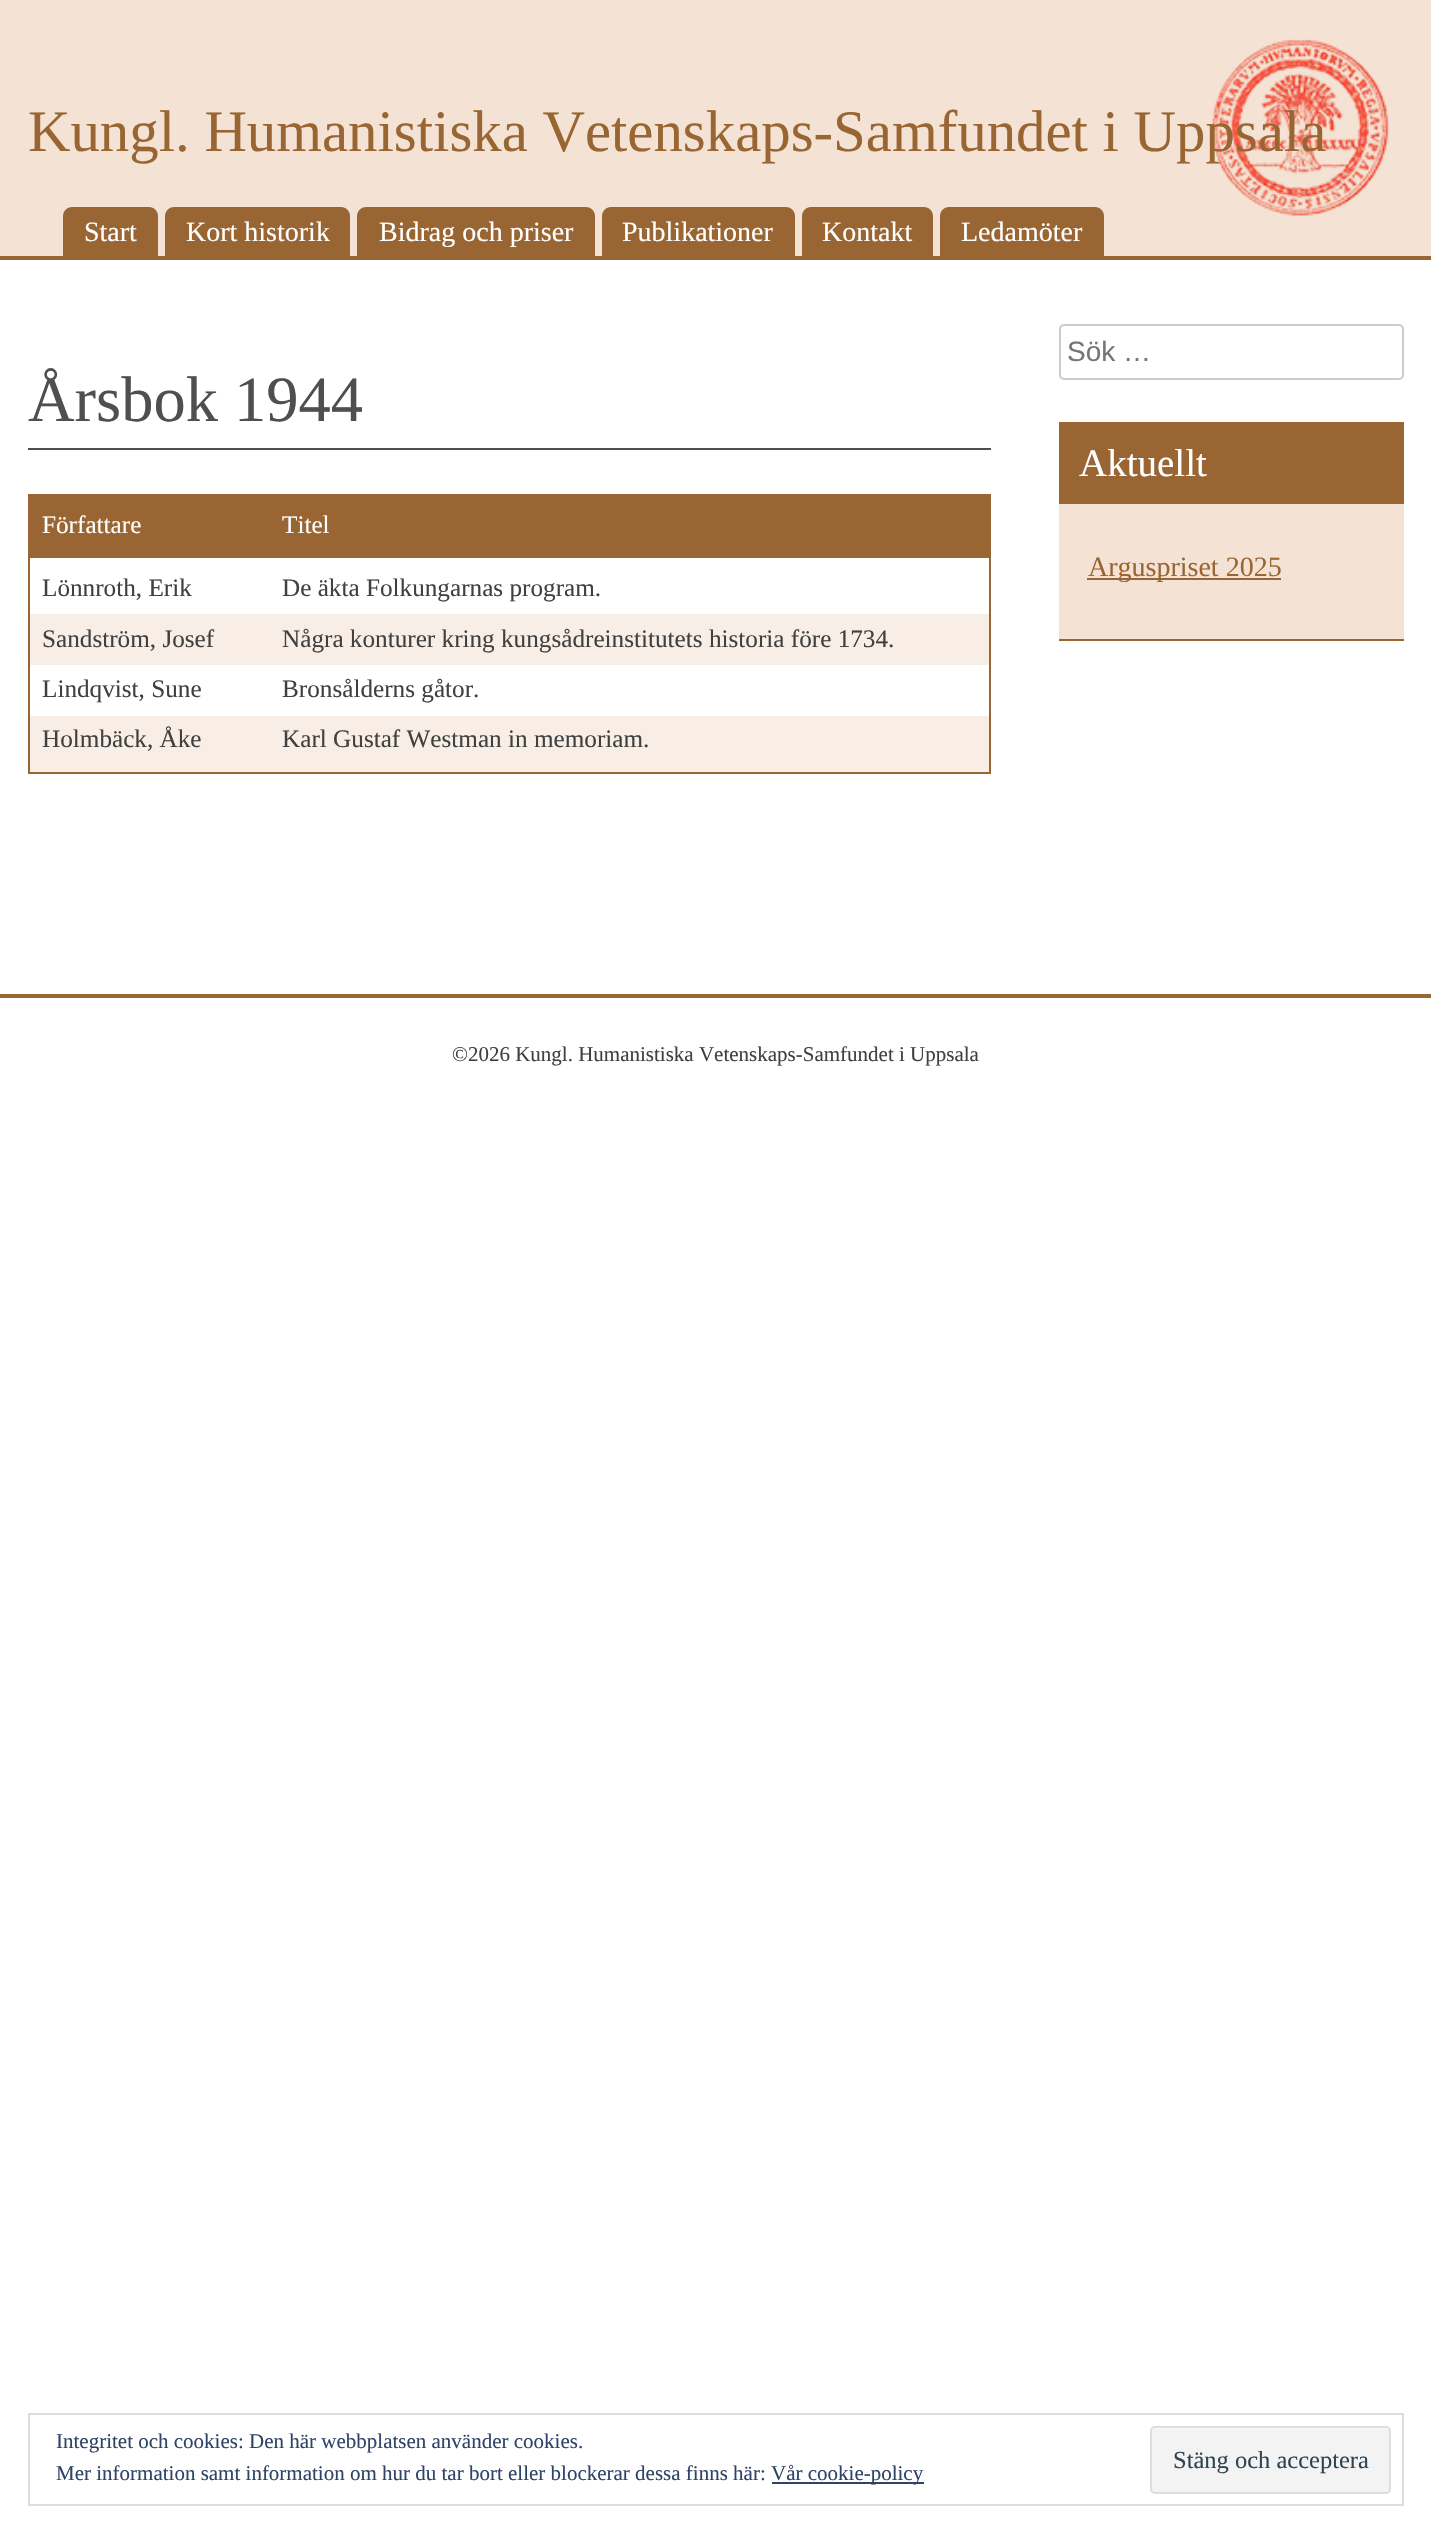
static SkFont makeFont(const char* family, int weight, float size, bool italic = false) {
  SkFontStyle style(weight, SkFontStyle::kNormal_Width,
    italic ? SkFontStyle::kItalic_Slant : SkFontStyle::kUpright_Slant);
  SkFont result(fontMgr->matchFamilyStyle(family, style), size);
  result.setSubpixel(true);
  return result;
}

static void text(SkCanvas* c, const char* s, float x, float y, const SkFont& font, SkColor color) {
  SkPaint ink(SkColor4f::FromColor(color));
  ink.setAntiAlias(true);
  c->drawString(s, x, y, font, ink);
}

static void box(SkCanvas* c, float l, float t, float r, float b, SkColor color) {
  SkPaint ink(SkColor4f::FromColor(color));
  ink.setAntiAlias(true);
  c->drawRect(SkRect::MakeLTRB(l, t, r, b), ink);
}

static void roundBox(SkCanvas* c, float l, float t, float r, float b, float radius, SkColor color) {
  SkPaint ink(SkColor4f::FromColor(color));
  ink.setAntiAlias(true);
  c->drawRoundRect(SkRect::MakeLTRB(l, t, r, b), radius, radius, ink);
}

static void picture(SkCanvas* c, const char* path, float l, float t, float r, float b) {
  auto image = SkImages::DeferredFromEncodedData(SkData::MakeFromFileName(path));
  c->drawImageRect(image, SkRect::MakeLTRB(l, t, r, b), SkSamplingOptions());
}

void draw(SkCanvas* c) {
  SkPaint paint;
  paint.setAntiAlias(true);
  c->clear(0xffffffff);
  box(c, 0, 0, 1431, 256, 0xfff4e3d4);
  picture(c, "img_01.png", 1212, 39, 1389, 216);
  box(c, 0, 256, 1431, 260, 0xff996633);
  SkFont face1 = makeFont("Liberation Serif", 400, 58.8f);
  text(c, "Kungl. Humanistiska Vetenskaps-Samfundet i Uppsala", 28, 151, face1, 0xff996633);
  paint.setColor(0xff996633);
  c->drawPath(SkPathBuilder().moveTo(72, 207).lineTo(149, 207).cubicTo(154, 207, 158, 211, 158, 216).lineTo(158, 259).lineTo(63, 259).lineTo(63, 216).cubicTo(63, 211, 67, 207, 72, 207).close().detach(), paint);
  SkFont face2 = makeFont("Liberation Serif", 400, 28);
  text(c, "Start", 84, 241, face2, 0xffffffff);
  c->drawPath(SkPathBuilder().moveTo(174, 207).lineTo(341, 207).cubicTo(346, 207, 350, 211, 350, 216).lineTo(350, 259).lineTo(165, 259).lineTo(165, 216).cubicTo(165, 211, 169, 207, 174, 207).close().detach(), paint);
  text(c, "Kort historik", 186, 241, face2, 0xffffffff);
  c->drawPath(SkPathBuilder().moveTo(366, 207).lineTo(586, 207).cubicTo(591, 207, 595, 211, 595, 216).lineTo(595, 259).lineTo(357, 259).lineTo(357, 216).cubicTo(357, 211, 361, 207, 366, 207).close().detach(), paint);
  text(c, "Bidrag och priser", 379, 241, face2, 0xffffffff);
  c->drawPath(SkPathBuilder().moveTo(611, 207).lineTo(786, 207).cubicTo(791, 207, 795, 211, 795, 216).lineTo(795, 259).lineTo(602, 259).lineTo(602, 216).cubicTo(602, 211, 606, 207, 611, 207).close().detach(), paint);
  text(c, "Publikationer", 622, 241, face2, 0xffffffff);
  c->drawPath(SkPathBuilder().moveTo(811, 207).lineTo(924, 207).cubicTo(929, 207, 933, 211, 933, 216).lineTo(933, 259).lineTo(802, 259).lineTo(802, 216).cubicTo(802, 211, 806, 207, 811, 207).close().detach(), paint);
  text(c, "Kontakt", 822, 241, face2, 0xffffffff);
  c->drawPath(SkPathBuilder().moveTo(949, 207).lineTo(1095, 207).cubicTo(1100, 207, 1104, 211, 1104, 216).lineTo(1104, 259).lineTo(940, 259).lineTo(940, 216).cubicTo(940, 211, 944, 207, 949, 207).close().detach(), paint);
  text(c, "Ledamöter", 961, 241, face2, 0xffffffff);
  box(c, 28, 448, 991, 450, 0xff4f4f4f);
  SkFont face3 = makeFont("Liberation Serif", 400, 64.5f);
  text(c, "Årsbok 1944", 28, 421, face3, 0xff4f4f4f);
  box(c, 28, 494, 991, 496, 0xff996633);
  box(c, 989, 494, 991, 774, 0xff996633);
  box(c, 28, 772, 991, 774, 0xff996633);
  box(c, 28, 494, 30, 774, 0xff996633);
  box(c, 30, 496, 989, 558, 0xff996633);
  SkFont face4 = makeFont("Liberation Serif", 400, 25.2f);
  text(c, "Författare", 42, 533, face4, 0xffffffff);
  text(c, "Titel", 282, 533, face4, 0xffffffff);
  text(c, "Lönnroth, Erik", 42, 596, face4, 0xff404040);
  text(c, "De äkta Folkungarnas program.", 282, 596, face4, 0xff404040);
  box(c, 30, 614, 989, 665, 0xfff8eee5);
  text(c, "Sandström, Josef", 42, 647, face4, 0xff404040);
  text(c, "Några konturer kring kungsådreinstitutets historia före 1734.", 282, 647, face4, 0xff404040);
  text(c, "Lindqvist, Sune", 42, 697, face4, 0xff404040);
  text(c, "Bronsålderns gåtor.", 282, 697, face4, 0xff404040);
  box(c, 30, 716, 989, 772, 0xfff8eee5);
  text(c, "Holmbäck, Åke", 42, 747, face4, 0xff404040);
  text(c, "Karl Gustaf Westman in memoriam.", 282, 747, face4, 0xff404040);
  paint.setStyle(SkPaint::kStroke_Style);
  paint.setStrokeWidth(2);
  paint.setColor(0xffcccccc);
  c->drawRoundRect(SkRect::MakeLTRB(1060, 325, 1403, 379), 4, 4, paint);
  SkFont face5 = makeFont("Liberation Sans", 400, 28);
  text(c, "Sök …", 1067, 361, face5, 0xff757575);
  box(c, 1059, 504, 1404, 639, 0xfff4e3d4);
  box(c, 1059, 639, 1404, 641, 0xff996633);
  box(c, 1059, 422, 1404, 504, 0xff996633);
  SkFont face6 = makeFont("Liberation Serif", 400, 39);
  text(c, "Aktuellt", 1079, 476, face6, 0xffffffff);
  box(c, 1087, 578, 1281, 580, 0xff996633);
  text(c, "Arguspriset 2025", 1088, 576, face2, 0xff996633);
  box(c, 0, 994, 1431, 998, 0xff996633);
  SkFont face7 = makeFont("Liberation Serif", 400, 21);
  text(c, "©2026 Kungl. Humanistiska Vetenskaps-Samfundet i Uppsala", 452, 1061, face7, 0xff404040);
  paint.setColor(0xffdedede);
  c->drawRect(SkRect::MakeLTRB(29, 2414, 1403, 2505), paint);
  text(c, "Integritet och cookies: Den här webbplatsen använder cookies.", 56, 2448, face7, 0xff2e4467);
  text(c, "Mer information samt information om hur du tar bort eller blockerar dessa finns här:", 56, 2480, face7, 0xff2e4467);
  box(c, 772, 2482, 924, 2484, 0xff2e4467);
  text(c, "Vår cookie-policy", 771, 2480, face7, 0xff2e4467);
  roundBox(c, 1150, 2426, 1391, 2494, 5, 0xfff3f3f3);
  paint.setStyle(SkPaint::kFill_Style);
  paint.setColor(0xfff9f9f9);
  c->drawPath(SkPathBuilder().moveTo(1155, 2429).lineTo(1386, 2429).cubicTo(1388, 2429, 1390, 2431, 1390, 2432).cubicTo(1390, 2429, 1389, 2427, 1386, 2427).lineTo(1156, 2427).cubicTo(1153, 2427, 1152, 2429, 1152, 2432).cubicTo(1152, 2431, 1153, 2429, 1155, 2429).close().detach(), paint);
  paint.setStyle(SkPaint::kStroke_Style);
  paint.setColor(0xffdedede);
  c->drawRoundRect(SkRect::MakeLTRB(1151, 2427, 1390, 2493), 4, 4, paint);
  SkFont face8 = makeFont("Liberation Serif", 400, 24.5f);
  text(c, "Stäng och acceptera", 1173, 2468, face8, 0xff2e4453);
}
